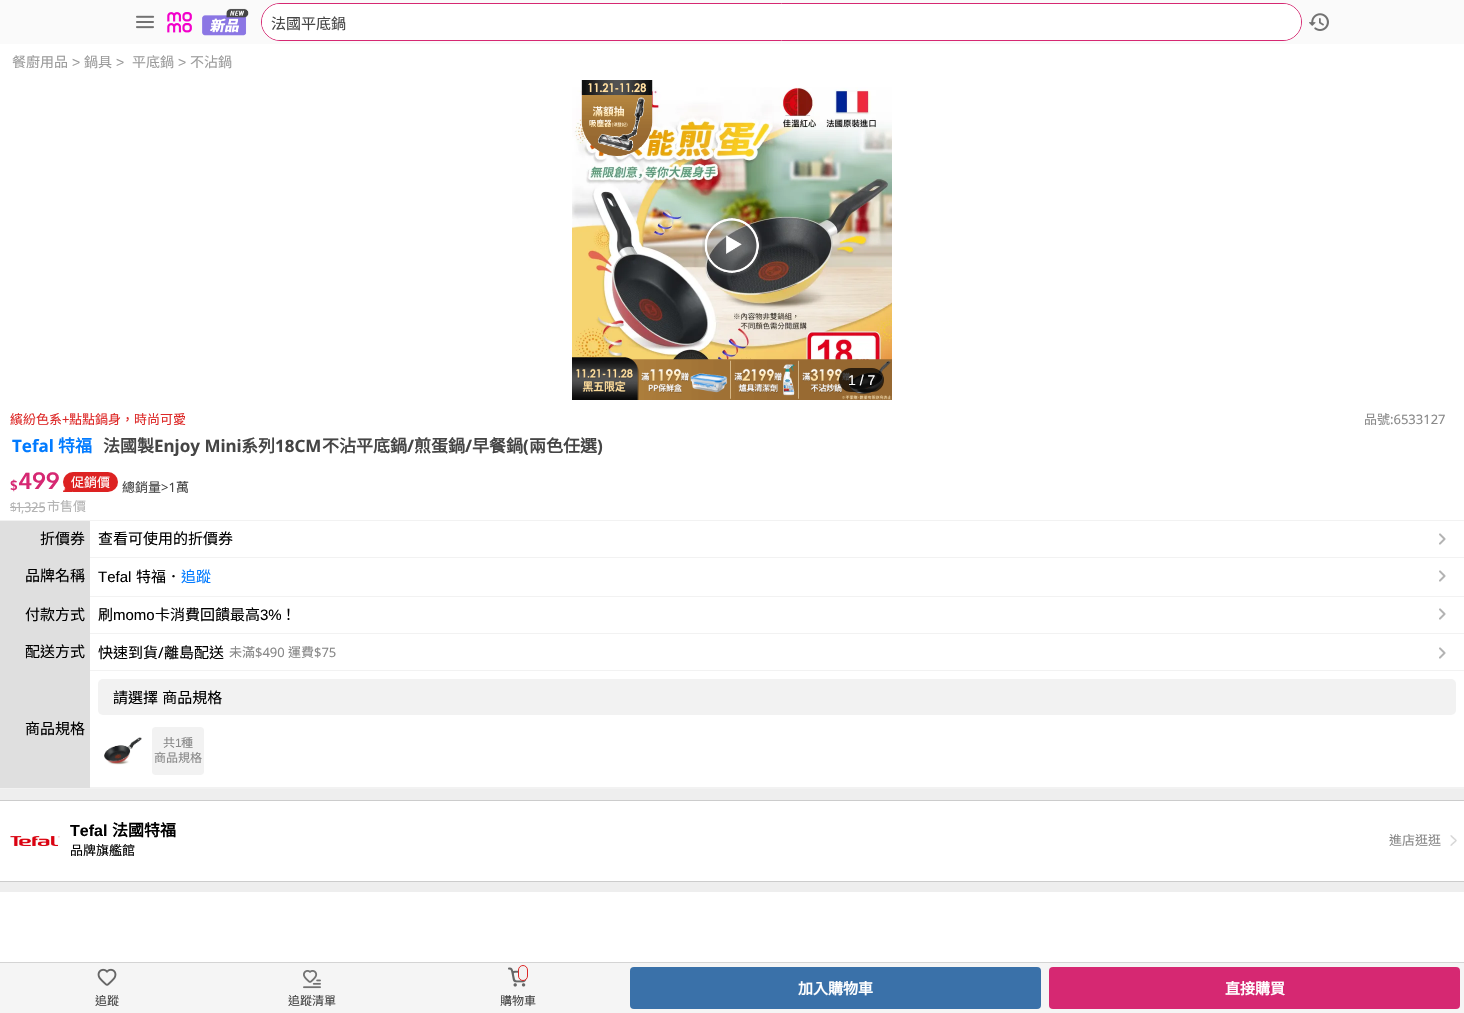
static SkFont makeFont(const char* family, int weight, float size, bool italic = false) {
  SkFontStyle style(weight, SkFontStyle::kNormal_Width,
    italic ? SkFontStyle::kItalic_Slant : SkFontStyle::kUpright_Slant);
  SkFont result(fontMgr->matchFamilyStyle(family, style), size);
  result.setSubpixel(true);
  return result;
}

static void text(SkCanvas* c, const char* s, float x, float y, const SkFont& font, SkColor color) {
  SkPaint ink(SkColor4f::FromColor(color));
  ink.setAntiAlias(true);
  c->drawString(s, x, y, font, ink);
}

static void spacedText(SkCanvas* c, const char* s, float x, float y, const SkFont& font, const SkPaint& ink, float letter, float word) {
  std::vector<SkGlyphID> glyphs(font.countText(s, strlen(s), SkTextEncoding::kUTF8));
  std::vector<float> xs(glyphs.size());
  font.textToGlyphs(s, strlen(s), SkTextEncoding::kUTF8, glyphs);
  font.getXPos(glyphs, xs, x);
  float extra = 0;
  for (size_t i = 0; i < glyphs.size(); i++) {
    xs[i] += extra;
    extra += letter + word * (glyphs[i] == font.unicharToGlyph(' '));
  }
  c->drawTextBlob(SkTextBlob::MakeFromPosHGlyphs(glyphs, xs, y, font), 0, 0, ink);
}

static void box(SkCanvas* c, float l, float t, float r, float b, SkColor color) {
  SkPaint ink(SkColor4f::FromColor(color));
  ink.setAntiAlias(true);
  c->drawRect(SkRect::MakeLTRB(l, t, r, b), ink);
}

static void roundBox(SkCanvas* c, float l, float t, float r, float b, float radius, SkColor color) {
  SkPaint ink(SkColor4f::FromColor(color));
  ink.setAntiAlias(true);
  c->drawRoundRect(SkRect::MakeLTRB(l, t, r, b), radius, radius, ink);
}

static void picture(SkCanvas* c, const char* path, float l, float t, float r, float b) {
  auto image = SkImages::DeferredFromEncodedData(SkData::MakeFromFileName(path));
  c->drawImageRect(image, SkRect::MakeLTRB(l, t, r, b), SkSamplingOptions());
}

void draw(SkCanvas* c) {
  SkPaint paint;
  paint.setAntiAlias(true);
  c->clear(0xffeeeeee);
  box(c, 0, 0, 1464, 44, 0xfffafafa);
  picture(c, "img_01.png", 136, 15, 155, 29);
  picture(c, "img_02.png", 167, 12, 192, 33);
  picture(c, "img_03.png", 202, 8, 249, 36);
  paint.setStyle(SkPaint::kStroke_Style);
  paint.setStrokeWidth(1);
  paint.setColor(0xffd62872);
  c->drawRoundRect(SkRect::MakeLTRB(261.5f, 3.5f, 1301.5f, 40.5f), 18.5f, 18.5f, paint);
  roundBox(c, 262, 4, 1301, 40, 18, 0xffffffff);
  roundBox(c, 262, 13, 1297, 33, 10, 0xffffffff);
  SkFont face1 = makeFont("Noto Sans CJK TC", 400, 15);
  text(c, "法國平底鍋", 271, 29, face1, 0xff454545);
  picture(c, "img_04.png", 1309, 13, 1329, 31);
  box(c, 0, 44, 1464, 787, 0xffffffff);
  SkFont face2 = makeFont("Noto Sans CJK TC", 400, 14);
  text(c, "餐廚用品", 12, 67, face2, 0xff9b9b9b);
  SkFont face3 = makeFont("Liberation Sans", 400, 14);
  text(c, ">", 72, 67, face3, 0xff9b9b9b);
  text(c, "鍋具", 84, 67, face2, 0xff9b9b9b);
  text(c, ">", 116, 67, face3, 0xff9b9b9b);
  text(c, "平底鍋", 132, 67, face2, 0xff9b9b9b);
  text(c, ">", 178, 67, face3, 0xff9b9b9b);
  text(c, "不沾鍋", 190, 67, face2, 0xff9b9b9b);
  picture(c, "img_07.png", 572, 87, 892, 360);
  picture(c, "img_05.png", 702, 215, 762, 276);
  picture(c, "img_06.png", 581, 80, 653, 156);
  picture(c, "img_08.png", 572, 357, 892, 400);
  roundBox(c, 839, 368, 884, 392, 12, 0xb3000000);
  text(c, "1 / 7", 848, 385, face3, 0xffffffff);
  SkFont face4 = makeFont("Noto Sans CJK TC", 400, 13);
  text(c, "繽紛色系", 10, 424, face4, 0xffdd2726);
  SkFont face5 = makeFont("Noto Sans", 400, 13);
  text(c, "+", 62, 424, face5, 0xffdd2726);
  text(c, "點點鍋身，時尚可愛", 69, 424, face4, 0xffdd2726);
  text(c, "品號", 1364, 424, face4, 0xff888888);
  text(c, ":6533127", 1390, 424, face5, 0xff888888);
  SkFont face6 = makeFont("Noto Sans", 700, 17);
  text(c, "Tefal", 12, 452, face6, 0xff027bff);
  SkFont face7 = makeFont("Noto Sans CJK TC", 700, 17);
  text(c, "特福", 58, 452, face7, 0xff027bff);
  text(c, "法國製", 103, 452, face7, 0xff454545);
  text(c, "Enjoy Mini", 154, 452, face6, 0xff454545);
  text(c, "系列", 241, 452, face7, 0xff454545);
  text(c, "18CM", 275, 452, face6, 0xff454545);
  text(c, "不沾平底鍋", 322, 452, face7, 0xff454545);
  text(c, "/", 407, 452, face6, 0xff454545);
  text(c, "煎蛋鍋", 414, 452, face7, 0xff454545);
  text(c, "/", 465, 452, face6, 0xff454545);
  text(c, "早餐鍋", 472, 452, face7, 0xff454545);
  text(c, "(", 523, 452, face6, 0xff454545);
  text(c, "兩色任選", 529, 452, face7, 0xff454545);
  text(c, ")", 597, 452, face6, 0xff454545);
  SkFont face8 = makeFont("Oxygen", 700, 13);
  text(c, "$", 10, 490, face8, 0xffd62872);
  SkFont face9 = makeFont("Oxygen", 700, 23);
  text(c, "499", 18, 489, face9, 0xffd62872);
  roundBox(c, 63, 472, 118, 492, 10, 0xffdd2222);
  text(c, "促銷價", 71, 487, face4, 0xffffffff);
  picture(c, "img_09.png", 63, 488, 72, 492);
  text(c, "總銷量", 122, 492, face4, 0xff454545);
  text(c, ">1", 161, 492, face5, 0xff454545);
  text(c, "萬", 176, 492, face4, 0xff454545);
  SkFont face10 = makeFont("Oxygen", 400, 11);
  text(c, "$", 10, 511, face10, 0xffb3b3b3);
  box(c, 10, 507, 17, 508, 0xffb3b3b3);
  SkFont face11 = makeFont("Oxygen", 400, 13);
  text(c, "1,325", 17, 512, face11, 0xffb3b3b3);
  box(c, 17, 507, 45, 508, 0xffb3b3b3);
  text(c, "市售價", 47, 511, face4, 0xffb3b3b3);
  box(c, 0, 520, 1464, 521, 0xfff2f2f2);
  box(c, 0, 788, 1464, 789, 0xfff2f2f2);
  box(c, 0, 521, 90, 788, 0xffdfdfdf);
  text(c, "折價券", 40, 544, face1, 0xff000000);
  box(c, 90, 557, 1464, 558, 0xfff2f2f2);
  text(c, "查看可使用的折價券", 98, 544, face1, 0xff000000);
  picture(c, "img_10.png", 1439, 533, 1446, 545);
  text(c, "品牌名稱", 25, 581, face1, 0xff000000);
  box(c, 90, 596, 1464, 597, 0xfff2f2f2);
  SkFont face12 = makeFont("Liberation Sans", 400, 15);
  text(c, "Tefal", 98, 582, face12, 0xff000000);
  text(c, "特福．", 136, 582, face1, 0xff000000);
  text(c, "追蹤", 181, 582, face1, 0xff027bff);
  picture(c, "img_10.png", 1439, 570, 1446, 582);
  text(c, "付款方式", 25, 620, face1, 0xff000000);
  box(c, 90, 633, 1464, 634, 0xfff2f2f2);
  text(c, "刷", 98, 620, face1, 0xff000000);
  text(c, "momo", 113, 620, face12, 0xff000000);
  text(c, "卡消費回饋最高", 155, 620, face1, 0xff000000);
  text(c, "3%", 260, 620, face12, 0xff000000);
  text(c, "！", 281, 620, face1, 0xff000000);
  picture(c, "img_10.png", 1439, 608, 1446, 620);
  text(c, "配送方式", 25, 657, face1, 0xff000000);
  box(c, 90, 670, 1464, 671, 0xfff2f2f2);
  text(c, "快速到貨", 98, 658, face1, 0xff000000);
  SkFont face13 = makeFont("Noto Sans", 400, 15);
  text(c, "/", 158, 658, face13, 0xff000000);
  text(c, "離島配送", 164, 658, face1, 0xff000000);
  text(c, "未滿", 229, 657, face4, 0xff888888);
  text(c, "$490", 255, 657, face5, 0xff888888);
  text(c, "運費", 288, 657, face4, 0xff888888);
  text(c, "$75", 314, 657, face5, 0xff888888);
  picture(c, "img_10.png", 1439, 647, 1446, 659);
  text(c, "商品規格", 25, 734, face1, 0xff000000);
  box(c, 90, 787, 1464, 788, 0xfff2f2f2);
  roundBox(c, 98, 679, 1456, 715, 5, 0xfff2f2f2);
  paint.setStyle(SkPaint::kFill_Style);
  paint.setColor(0xff000000);
  spacedText(c, "請選擇 商品規格", 113, 703, face1, paint, 0, 1);
  picture(c, "img_11.png", 104, 737, 142, 765);
  roundBox(c, 152, 727, 204, 775, 4, 0xfff2f2f2);
  SkFont face14 = makeFont("Noto Sans CJK TC", 400, 12);
  text(c, "共", 163, 747, face14, 0xff888888);
  SkFont face15 = makeFont("Liberation Sans", 400, 12);
  text(c, "1", 175, 747, face15, 0xff888888);
  text(c, "種", 181, 747, face14, 0xff888888);
  text(c, "商品規格", 154, 762, face14, 0xff888888);
  box(c, 0, 801, 1464, 881, 0xffffffff);
  box(c, 0, 800, 1464, 801, 0xffcccccc);
  box(c, 0, 881, 1464, 882, 0xffcccccc);
  picture(c, "img_12.png", 10, 836, 60, 847);
  SkFont face16 = makeFont("Liberation Sans", 700, 16);
  text(c, "Tefal", 70, 836, face16, 0xff000000);
  SkFont face17 = makeFont("Noto Sans CJK TC", 700, 16);
  text(c, "法國特福", 112, 836, face17, 0xff000000);
  text(c, "品牌旗艦館", 70, 855, face4, 0xff000000);
  picture(c, "img_13.png", 1450, 835, 1457, 846);
  text(c, "進店逛逛", 1389, 845, face4, 0xff888888);
  box(c, 0, 892, 1464, 962, 0xffffffff);
  box(c, 0, 963, 1464, 1013, 0xfff5f5f5);
  box(c, 0, 962, 1464, 963, 0xffd4d4d4);
  roundBox(c, 630, 967, 1041, 1009, 4, 0xff3a71a9);
  SkFont face18 = makeFont("Noto Sans CJK TC", 700, 15);
  text(c, "加入購物車", 798, 994, face18, 0xffffffff);
  roundBox(c, 1049, 967, 1460, 1009, 4, 0xffd62872);
  text(c, "直接購買", 1225, 994, face18, 0xffffffff);
  picture(c, "img_14.png", 97, 968, 117, 986);
  text(c, "追蹤", 95, 1005, face14, 0xff454545);
  picture(c, "img_15.png", 303, 970, 321, 989);
  text(c, "追蹤清單", 288, 1005, face14, 0xff454545);
  picture(c, "img_16.png", 508, 967, 528, 987);
  paint.setColor(0xfff2f2f2);
  c->drawRoundRect(SkRect::MakeLTRB(518.5f, 965.5f, 527.5f, 980.5f), 4.5f, 4.5f, paint);
  paint.setStyle(SkPaint::kStroke_Style);
  paint.setColor(0xffdd2726);
  c->drawRoundRect(SkRect::MakeLTRB(518.5f, 965.5f, 527.5f, 980.5f), 4.5f, 4.5f, paint);
  text(c, "購物車", 500, 1005, face14, 0xff454545);
}
